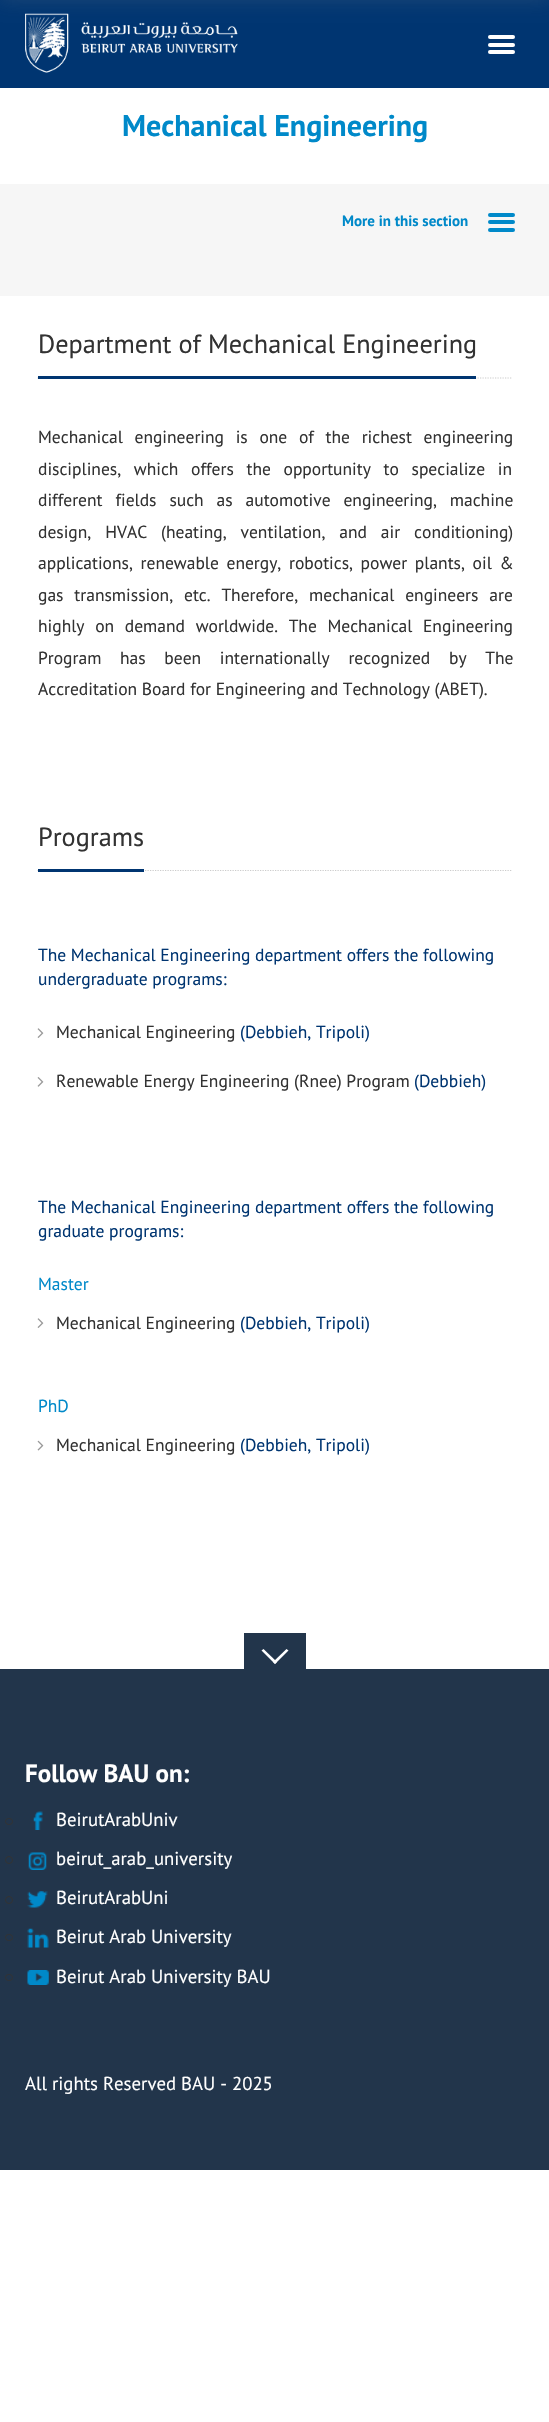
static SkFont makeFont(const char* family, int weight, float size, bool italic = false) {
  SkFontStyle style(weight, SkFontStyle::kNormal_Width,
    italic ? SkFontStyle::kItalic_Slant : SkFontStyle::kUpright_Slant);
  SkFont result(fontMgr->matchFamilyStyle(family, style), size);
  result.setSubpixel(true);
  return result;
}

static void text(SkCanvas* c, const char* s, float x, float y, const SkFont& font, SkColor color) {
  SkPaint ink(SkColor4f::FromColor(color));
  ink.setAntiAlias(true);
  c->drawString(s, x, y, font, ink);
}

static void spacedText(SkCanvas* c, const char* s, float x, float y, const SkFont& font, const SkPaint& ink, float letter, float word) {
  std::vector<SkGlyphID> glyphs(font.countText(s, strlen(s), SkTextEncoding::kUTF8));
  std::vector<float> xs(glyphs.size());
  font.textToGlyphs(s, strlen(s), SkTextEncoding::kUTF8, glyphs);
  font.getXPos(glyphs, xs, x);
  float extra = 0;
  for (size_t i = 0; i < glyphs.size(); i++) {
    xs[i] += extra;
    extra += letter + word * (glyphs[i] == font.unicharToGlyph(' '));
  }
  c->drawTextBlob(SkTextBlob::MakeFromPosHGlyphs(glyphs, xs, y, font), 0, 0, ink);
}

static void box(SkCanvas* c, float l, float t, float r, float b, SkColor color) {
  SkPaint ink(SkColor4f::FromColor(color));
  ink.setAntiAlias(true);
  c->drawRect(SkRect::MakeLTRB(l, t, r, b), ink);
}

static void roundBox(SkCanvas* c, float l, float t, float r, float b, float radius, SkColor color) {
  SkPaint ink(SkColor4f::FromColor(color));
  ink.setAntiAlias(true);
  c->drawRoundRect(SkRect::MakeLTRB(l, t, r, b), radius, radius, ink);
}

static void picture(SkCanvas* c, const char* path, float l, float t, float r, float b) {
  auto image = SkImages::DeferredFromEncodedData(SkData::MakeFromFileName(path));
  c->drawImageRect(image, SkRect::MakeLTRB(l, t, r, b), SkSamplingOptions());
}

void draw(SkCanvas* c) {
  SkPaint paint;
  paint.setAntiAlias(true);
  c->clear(0xffffffff);
  box(c, 0, 0, 549, 88, 0xff003571);
  picture(c, "img_01.png", 25, 13, 238, 73);
  roundBox(c, 488, 43, 515, 47, 2, 0xffffffff);
  roundBox(c, 488, 35, 515, 39, 2, 0xffffffff);
  roundBox(c, 488, 50, 515, 54, 2, 0xffffffff);
  paint.setColor(0x338d8d8d);
  paint.setMaskFilter(SkMaskFilter::MakeBlur(kNormal_SkBlurStyle, 9.5f));
  c->drawRect(SkRect::MakeLTRB(0, -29, 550, 0), paint);
  paint.setMaskFilter(nullptr);
  SkFont face1 = makeFont("PT Sans", 700, 30);
  text(c, "Mechanical Engineering", 122, 136, face1, 0xff0089c9);
  box(c, 0, 184, 549, 296, 0xfff6f6f6);
  SkFont face2 = makeFont("PT Sans", 700, 15);
  text(c, "More in this section", 342, 226, face2, 0xff0089c9);
  roundBox(c, 488, 220, 515, 224, 2, 0xff0089c9);
  roundBox(c, 488, 213, 515, 217, 2, 0xff0089c9);
  roundBox(c, 488, 228, 515, 232, 2, 0xff0089c9);
  paint.setStyle(SkPaint::kStroke_Style);
  paint.setStrokeWidth(1.2f);
  paint.setColor(0xffcccccc);
  paint.setPathEffect(SkDashPathEffect::Make({{1.25f, 1.25f}}, 0));
  c->drawPath(SkPathBuilder().moveTo(37.5f, 378).lineTo(512.5f, 378).detach(), paint);
  paint.setPathEffect(nullptr);
  box(c, 38, 376, 476, 379, 0xff003571);
  SkFont face3 = makeFont("PT Sans", 400, 26.25f);
  text(c, "Department of Mechanical Engineering", 38, 353, face3, 0xff323232);
  SkFont face4 = makeFont("PT Sans", 400, 17.5f);
  paint.setStyle(SkPaint::kFill_Style);
  paint.setColor(0xff323232);
  spacedText(c, "Mechanical engineering is one of the richest engineering", 38, 443, face4, paint, 0, 7);
  spacedText(c, "disciplines, which offers the opportunity to specialize in", 38, 475, face4, paint, 0, 8);
  spacedText(c, "different fields such as automotive engineering, machine", 38, 506, face4, paint, 0, 8.25f);
  spacedText(c, "design, HVAC (heating, ventilation, and air conditioning)", 38, 538, face4, paint, 0, 9.25f);
  spacedText(c, "applications, renewable energy, robotics, power plants, oil &", 38, 569, face4, paint, 0, 3);
  spacedText(c, "gas transmission, etc. Therefore, mechanical engineers are", 38, 601, face4, paint, 0, 6.25f);
  spacedText(c, "highly on demand worldwide. The Mechanical Engineering", 38, 632, face4, paint, 0, 6);
  spacedText(c, "Program has been internationally recognized by The", 38, 664, face4, paint, 0, 14);
  text(c, "Accreditation Board for Engineering and Technology (ABET).", 38, 695, face4, 0xff323232);
  paint.setStyle(SkPaint::kStroke_Style);
  paint.setColor(0xffcccccc);
  paint.setPathEffect(SkDashPathEffect::Make({{1.25f, 1.25f}}, 0));
  c->drawPath(SkPathBuilder().moveTo(37.5f, 870.5f).lineTo(512.5f, 870.5f).detach(), paint);
  paint.setPathEffect(nullptr);
  box(c, 38, 869, 144, 872, 0xff003571);
  text(c, "Programs", 38, 846, face3, 0xff323232);
  text(c, "The Mechanical Engineering department offers the following", 38, 961, face4, 0xff003571);
  text(c, "undergraduate programs:", 38, 985, face4, 0xff003571);
  picture(c, "img_02.png", 37, 1028, 44, 1038);
  text(c, "Mechanical Engineering", 56, 1038, face4, 0xff323232);
  text(c, "(Debbieh, Tripoli)", 240, 1038, face4, 0xff003571);
  picture(c, "img_03.png", 37, 1077, 44, 1087);
  text(c, "Renewable Energy Engineering (Rnee) Program", 56, 1087, face4, 0xff323232);
  text(c, "(Debbieh)", 414, 1087, face4, 0xff003571);
  text(c, "The Mechanical Engineering department offers the following", 38, 1213, face4, 0xff003571);
  text(c, "graduate programs:", 38, 1237, face4, 0xff003571);
  text(c, "Master", 38, 1290, face4, 0xff0089c9);
  picture(c, "img_02.png", 37, 1318, 44, 1328);
  text(c, "Mechanical Engineering", 56, 1329, face4, 0xff323232);
  text(c, "(Debbieh, Tripoli)", 240, 1329, face4, 0xff003571);
  text(c, "PhD", 38, 1412, face4, 0xff0089c9);
  picture(c, "img_04.png", 37, 1440, 44, 1451);
  text(c, "Mechanical Engineering", 56, 1451, face4, 0xff323232);
  text(c, "(Debbieh, Tripoli)", 240, 1451, face4, 0xff003571);
  box(c, 0, 1669, 549, 2170, 0xff22354b);
  box(c, 244, 1633, 306, 1669, 0xff22354b);
  paint.setStyle(SkPaint::kFill_Style);
  paint.setColor(0xffffffff);
  c->drawPath(SkPathBuilder().moveTo(275, 1664).lineTo(261.5f, 1650.5f).lineTo(263.5f, 1649).lineTo(277, 1662).close().detach(), paint);
  c->drawPath(SkPathBuilder().moveTo(275, 1664).lineTo(273, 1662).lineTo(286.5f, 1649).lineTo(288.5f, 1650.5f).close().detach(), paint);
  SkFont face5 = makeFont("PT Sans", 700, 25);
  text(c, "Follow BAU on:", 25, 1782, face5, 0xffffffff);
  paint.setStyle(SkPaint::kStroke_Style);
  paint.setStrokeWidth(1);
  paint.setColor(0xff323232);
  c->drawRoundRect(SkRect::MakeLTRB(5.5f, 1818.5f, 12.5f, 1824.5f), 3, 3, paint);
  picture(c, "img_05.png", 33, 1811, 43, 1830);
  SkFont face6 = makeFont("PT Sans", 400, 18.75f);
  text(c, "BeirutArabUniv", 56, 1826, face6, 0xffffffff);
  c->drawCircle(9, 1860, 3.5f, paint);
  picture(c, "img_06.png", 28, 1852, 47, 1870);
  text(c, "beirut_arab_university", 56, 1865, face6, 0xffffffff);
  c->drawCircle(9, 1900, 3.5f, paint);
  picture(c, "img_07.png", 27, 1891, 48, 1908);
  text(c, "BeirutArabUni", 56, 1904, face6, 0xffffffff);
  c->drawRoundRect(SkRect::MakeLTRB(5.5f, 1934.5f, 12.5f, 1940.5f), 3, 3, paint);
  picture(c, "img_08.png", 27, 1928, 49, 1948);
  text(c, "Beirut Arab University", 56, 1943, face6, 0xffffffff);
  c->drawRoundRect(SkRect::MakeLTRB(5.5f, 1974.5f, 12.5f, 1980.5f), 3, 3, paint);
  picture(c, "img_09.png", 27, 1970, 49, 1985);
  text(c, "Beirut Arab University BAU", 56, 1983, face6, 0xffffffff);
  text(c, "All rights Reserved BAU - 2025", 25, 2090, face6, 0xffffffff);
}
